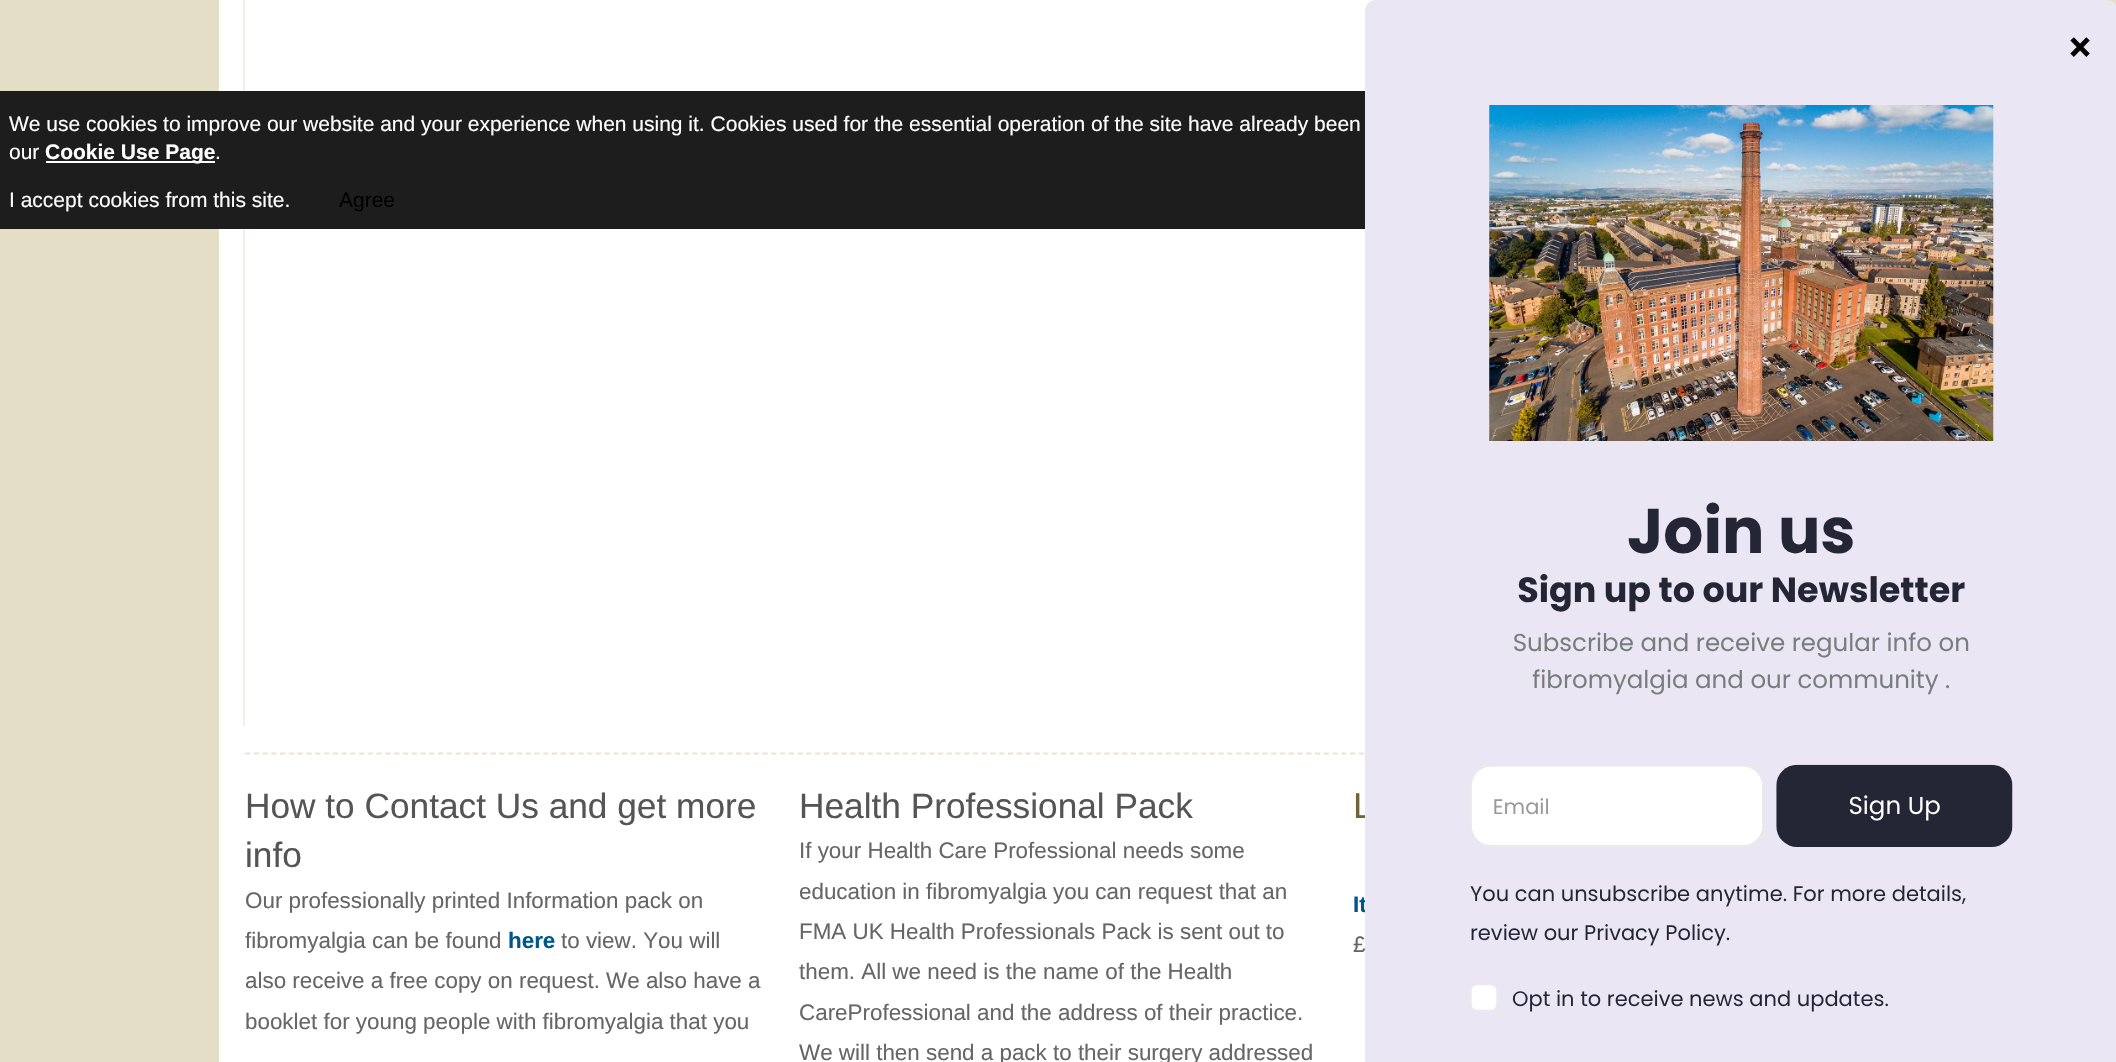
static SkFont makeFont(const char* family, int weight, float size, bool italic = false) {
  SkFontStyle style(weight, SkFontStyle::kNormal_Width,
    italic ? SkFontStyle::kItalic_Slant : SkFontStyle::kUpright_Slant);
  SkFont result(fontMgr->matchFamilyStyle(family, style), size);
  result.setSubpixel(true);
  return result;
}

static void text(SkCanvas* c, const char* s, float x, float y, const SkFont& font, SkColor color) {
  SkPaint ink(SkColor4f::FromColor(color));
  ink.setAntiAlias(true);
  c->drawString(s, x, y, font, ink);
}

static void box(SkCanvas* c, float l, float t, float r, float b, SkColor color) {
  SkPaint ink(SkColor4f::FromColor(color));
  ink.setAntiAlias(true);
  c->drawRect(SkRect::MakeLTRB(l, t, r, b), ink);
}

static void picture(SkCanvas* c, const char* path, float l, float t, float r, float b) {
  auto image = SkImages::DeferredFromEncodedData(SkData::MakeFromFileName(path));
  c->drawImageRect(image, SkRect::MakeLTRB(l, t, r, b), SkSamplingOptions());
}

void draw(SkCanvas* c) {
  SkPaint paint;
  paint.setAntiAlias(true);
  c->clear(0xffe5dec7);
  box(c, 219, 0, 1375, 1062, 0xffffffff);
  box(c, 243, 0, 245, 726, 0xfff4eee6);
  box(c, 0, 91, 1365, 229, 0xff1d1d1d);
  SkFont face1 = makeFont("Liberation Sans", 400, 21);
  text(c, "We use cookies to improve our website and your experience when using it. Cookies used for the essential operation of the site have already been", 9, 131, face1, 0xffffffff);
  text(c, "our", 9, 159, face1, 0xffffffff);
  box(c, 46, 161, 215, 163, 0xffffffff);
  SkFont face2 = makeFont("Liberation Sans", 700, 21);
  text(c, "Cookie Use Page", 45, 159, face2, 0xffffffff);
  text(c, ".", 215, 159, face1, 0xffffffff);
  text(c, "I accept cookies from this site.", 9, 207, face1, 0xffffffff);
  text(c, "Agree", 339, 207, face1, 0xff000000);
  paint.setStyle(SkPaint::kStroke_Style);
  paint.setStrokeWidth(1.8f);
  paint.setColor(0xffede3d5);
  paint.setPathEffect(SkDashPathEffect::Make({{5.25f, 3.52f}}, 0));
  c->drawPath(SkPathBuilder().moveTo(245, 753.5f).lineTo(1872.5f, 753.5f).detach(), paint);
  paint.setPathEffect(nullptr);
  SkFont face3 = makeFont("Arimo", 400, 36);
  text(c, "L", 1353, 818, face3, 0xff71643c);
  SkFont face4 = makeFont("Liberation Sans", 700, 22.4f);
  text(c, "It", 1353, 912, face4, 0xff005689);
  SkFont face5 = makeFont("Liberation Sans", 400, 22.4f);
  text(c, "£", 1353, 952, face5, 0xff666666);
  picture(c, "img_01.png", 1365, 0, 2116, 1062);
  SkFont face6 = makeFont("Arimo", 400, 35.25f);
  text(c, "How to Contact Us and get more", 245, 818, face6, 0xff555555);
  text(c, "info", 245, 867, face6, 0xff555555);
  text(c, "Our professionally printed Information pack on", 245, 908, face5, 0xff666666);
  text(c, "fibromyalgia can be found", 245, 948, face5, 0xff666666);
  text(c, "here", 508, 948, face4, 0xff005689);
  text(c, "to view. You will", 561, 948, face5, 0xff666666);
  text(c, "also receive a free copy on request. We also have a", 245, 988, face5, 0xff666666);
  text(c, "booklet for young people with fibromyalgia that you", 245, 1029, face5, 0xff666666);
  text(c, "Health Professional Pack", 799, 818, face6, 0xff555555);
  text(c, "If your Health Care Professional needs some", 799, 858, face5, 0xff666666);
  text(c, "education in fibromyalgia you can request that an", 799, 899, face5, 0xff666666);
  text(c, "FMA UK Health Professionals Pack is sent out to", 799, 939, face5, 0xff666666);
  text(c, "them. All we need is the name of the Health", 799, 979, face5, 0xff666666);
  text(c, "CareProfessional and the address of their practice.", 799, 1020, face5, 0xff666666);
  text(c, "We will then send a pack to their surgery addressed", 799, 1060, face5, 0xff666666);
}
